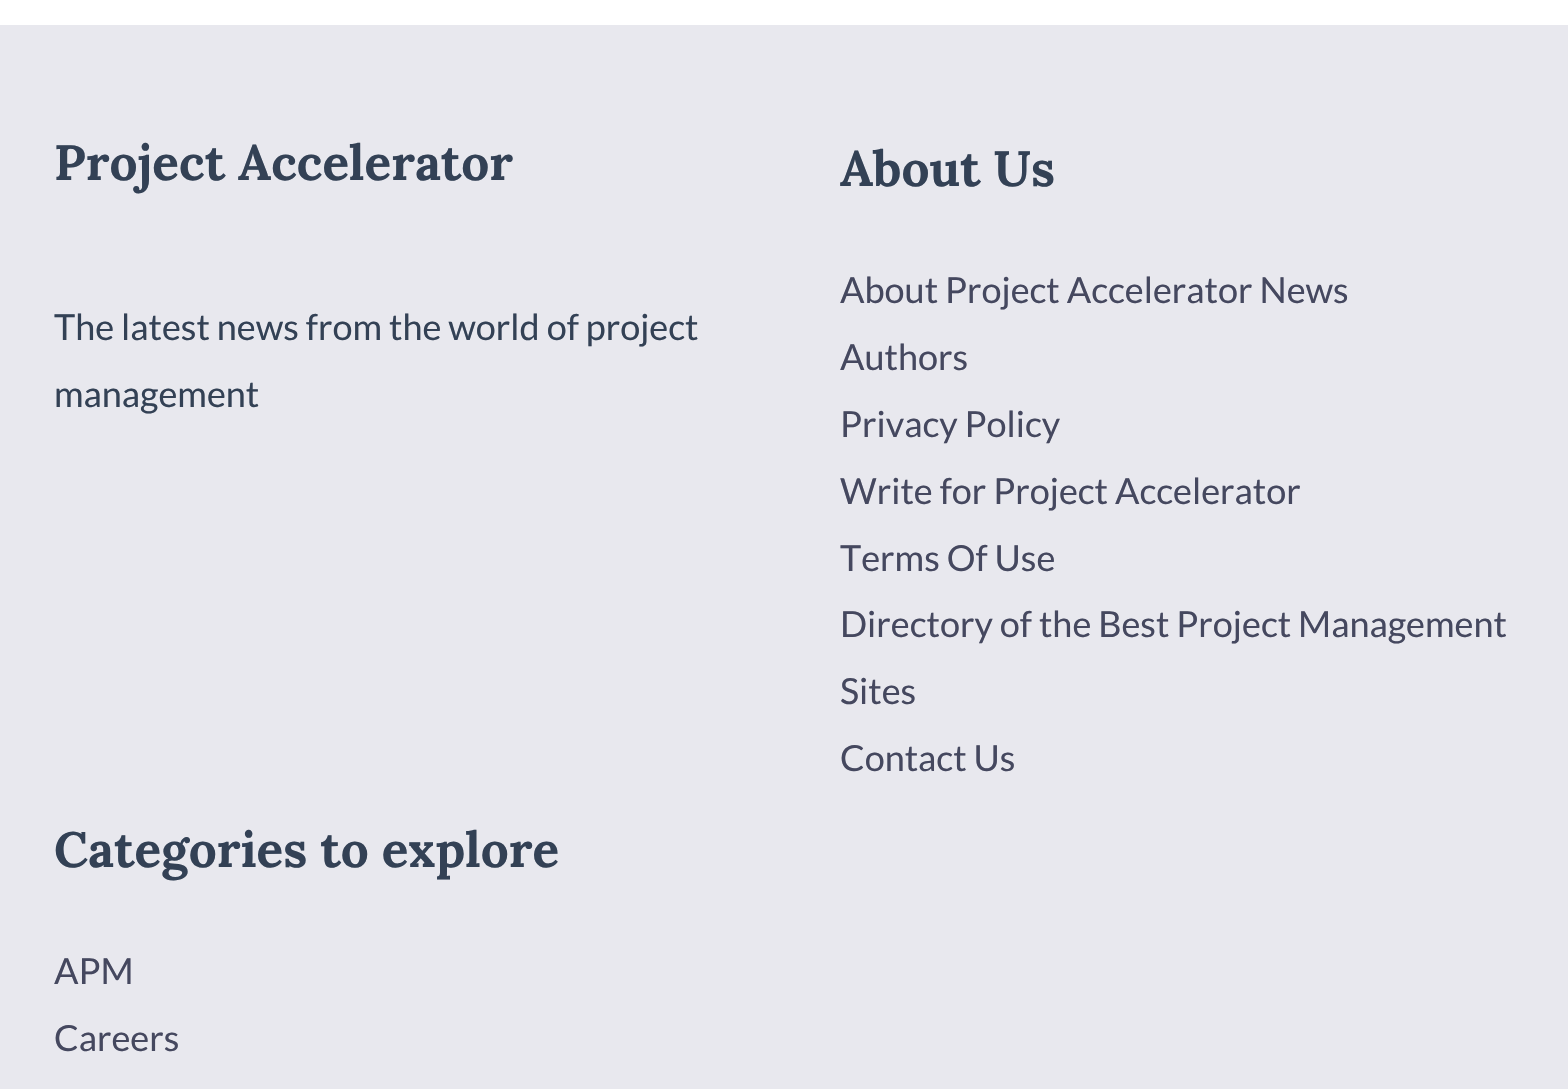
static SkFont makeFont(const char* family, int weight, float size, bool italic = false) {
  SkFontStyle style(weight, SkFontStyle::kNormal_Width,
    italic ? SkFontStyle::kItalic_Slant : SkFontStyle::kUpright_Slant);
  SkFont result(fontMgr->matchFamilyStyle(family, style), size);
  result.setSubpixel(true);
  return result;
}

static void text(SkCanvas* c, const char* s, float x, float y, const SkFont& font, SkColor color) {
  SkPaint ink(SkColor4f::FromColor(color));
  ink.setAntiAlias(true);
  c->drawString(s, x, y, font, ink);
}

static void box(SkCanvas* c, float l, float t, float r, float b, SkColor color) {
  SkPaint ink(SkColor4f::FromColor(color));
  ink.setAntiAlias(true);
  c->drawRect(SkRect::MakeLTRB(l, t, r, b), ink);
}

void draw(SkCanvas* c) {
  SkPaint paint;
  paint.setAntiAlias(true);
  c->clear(0xffffffff);
  box(c, 0, 25, 1568, 1089, 0xffe8e8ee);
  SkFont face1 = makeFont("Lora", 700, 49.5f);
  text(c, "Project Accelerator", 54, 180, face1, 0xff334155);
  SkFont face2 = makeFont("Lato", 400, 36);
  text(c, "The latest news from the world of project", 54, 340, face2, 0xff334155);
  text(c, "management", 54, 407, face2, 0xff334155);
  text(c, "About Us", 840, 186, face1, 0xff334155);
  text(c, "About Project Accelerator News", 840, 303, face2, 0xff45485f);
  text(c, "Authors", 840, 370, face2, 0xff45485f);
  text(c, "Privacy Policy", 840, 437, face2, 0xff45485f);
  text(c, "Write for Project Accelerator", 840, 504, face2, 0xff45485f);
  text(c, "Terms Of Use", 840, 571, face2, 0xff45485f);
  text(c, "Directory of the Best Project Management", 840, 637, face2, 0xff45485f);
  text(c, "Sites", 840, 704, face2, 0xff45485f);
  text(c, "Contact Us", 840, 771, face2, 0xff45485f);
  text(c, "Categories to explore", 54, 867, face1, 0xff334155);
  text(c, "APM", 54, 984, face2, 0xff45485f);
  text(c, "Careers", 54, 1051, face2, 0xff45485f);
}
